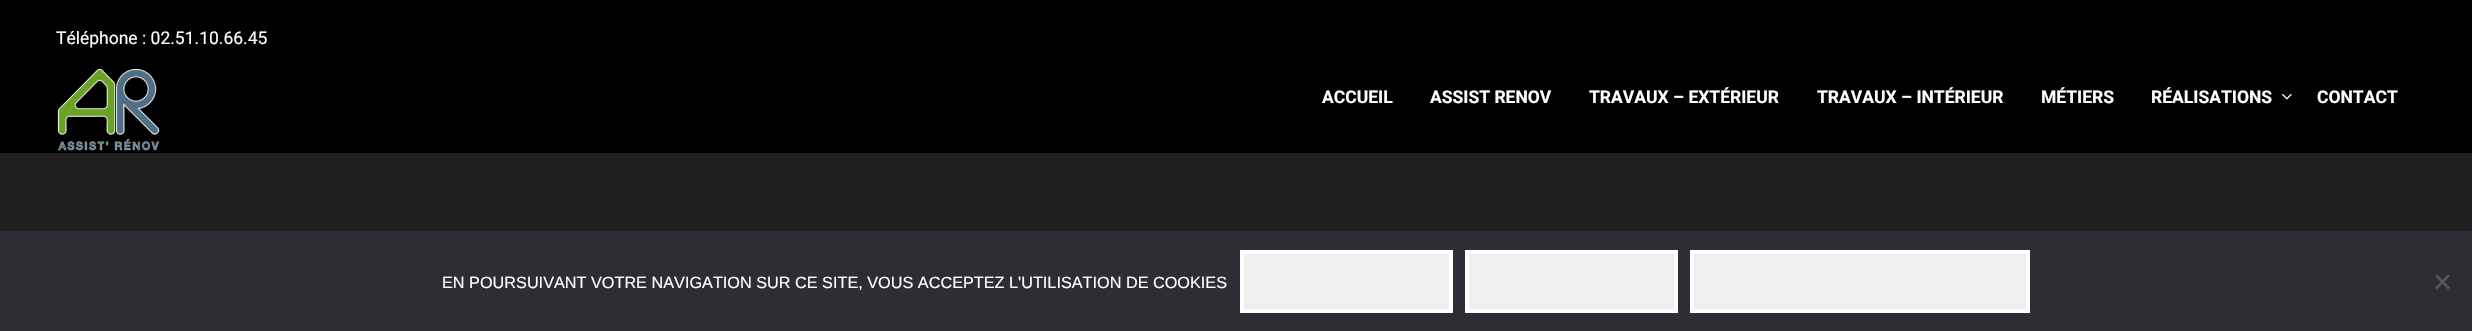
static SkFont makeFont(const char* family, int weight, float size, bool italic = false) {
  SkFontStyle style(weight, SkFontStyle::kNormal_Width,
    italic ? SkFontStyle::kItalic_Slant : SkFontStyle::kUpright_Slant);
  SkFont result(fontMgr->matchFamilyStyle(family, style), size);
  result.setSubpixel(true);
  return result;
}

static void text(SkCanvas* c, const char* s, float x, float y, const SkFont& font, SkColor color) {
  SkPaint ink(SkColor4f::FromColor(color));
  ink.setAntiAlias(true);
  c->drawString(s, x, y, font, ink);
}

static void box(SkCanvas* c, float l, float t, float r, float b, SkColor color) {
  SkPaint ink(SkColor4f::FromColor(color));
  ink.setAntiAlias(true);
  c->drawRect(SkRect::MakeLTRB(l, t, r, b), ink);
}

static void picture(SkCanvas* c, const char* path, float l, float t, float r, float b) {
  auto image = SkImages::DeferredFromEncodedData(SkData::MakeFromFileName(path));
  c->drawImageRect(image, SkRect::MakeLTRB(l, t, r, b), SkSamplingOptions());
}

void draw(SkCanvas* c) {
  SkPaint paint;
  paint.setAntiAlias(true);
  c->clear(0xff211f20);
  box(c, 0, 0, 2472, 153, 0xff000000);
  SkFont face1 = makeFont("Roboto", 400, 17.5f);
  text(c, "Téléphone : 02.51.10.66.45", 56, 44, face1, 0xffffffff);
  picture(c, "img_01.png", 57, 69, 160, 151);
  SkFont face2 = makeFont("Roboto", 700, 17.5f);
  text(c, "ACCUEIL", 1322, 103, face2, 0xffffffff);
  text(c, "ASSIST RENOV", 1430, 103, face2, 0xffffffff);
  text(c, "TRAVAUX – EXTÉRIEUR", 1589, 103, face2, 0xffffffff);
  text(c, "TRAVAUX – INTÉRIEUR", 1817, 103, face2, 0xffffffff);
  text(c, "MÉTIERS", 2041, 103, face2, 0xffffffff);
  text(c, "RÉALISATIONS", 2151, 103, face2, 0xffffffff);
  picture(c, "img_02.png", 2282, 93, 2292, 100);
  text(c, "CONTACT", 2317, 103, face2, 0xffffffff);
  box(c, 0, 231, 2472, 331, 0xff2e2d34);
  SkFont face3 = makeFont("Liberation Sans", 400, 16.25f);
  text(c, "EN POURSUIVANT VOTRE NAVIGATION SUR CE SITE, VOUS ACCEPTEZ L'UTILISATION DE COOKIES", 442, 288, face3, 0xffffffff);
  paint.setColor(0xffefefef);
  c->drawRect(SkRect::MakeLTRB(1242, 252, 1451, 311), paint);
  paint.setStyle(SkPaint::kStroke_Style);
  paint.setStrokeWidth(4);
  paint.setColor(0xffffffff);
  c->drawRect(SkRect::MakeLTRB(1242, 252, 1451, 311), paint);
  paint.setStyle(SkPaint::kFill_Style);
  paint.setColor(0xffefefef);
  c->drawRect(SkRect::MakeLTRB(1467, 252, 1676, 311), paint);
  paint.setStyle(SkPaint::kStroke_Style);
  paint.setColor(0xffffffff);
  c->drawRect(SkRect::MakeLTRB(1467, 252, 1676, 311), paint);
  paint.setStyle(SkPaint::kFill_Style);
  paint.setColor(0xffefefef);
  c->drawRect(SkRect::MakeLTRB(1692, 252, 2028, 311), paint);
  paint.setStyle(SkPaint::kStroke_Style);
  paint.setColor(0xffffffff);
  c->drawRect(SkRect::MakeLTRB(1692, 252, 2028, 311), paint);
  paint.setStyle(SkPaint::kFill_Style);
  paint.setColor(0xff57575a);
  c->drawPath(SkPathBuilder().moveTo(2448, 274.5f).lineTo(2450, 276).lineTo(2437, 289.5f).lineTo(2435, 287.5f).close().detach(), paint);
  c->drawPath(SkPathBuilder().moveTo(2435, 276).lineTo(2437, 274.5f).lineTo(2450, 287.5f).lineTo(2448, 289.5f).close().detach(), paint);
}
